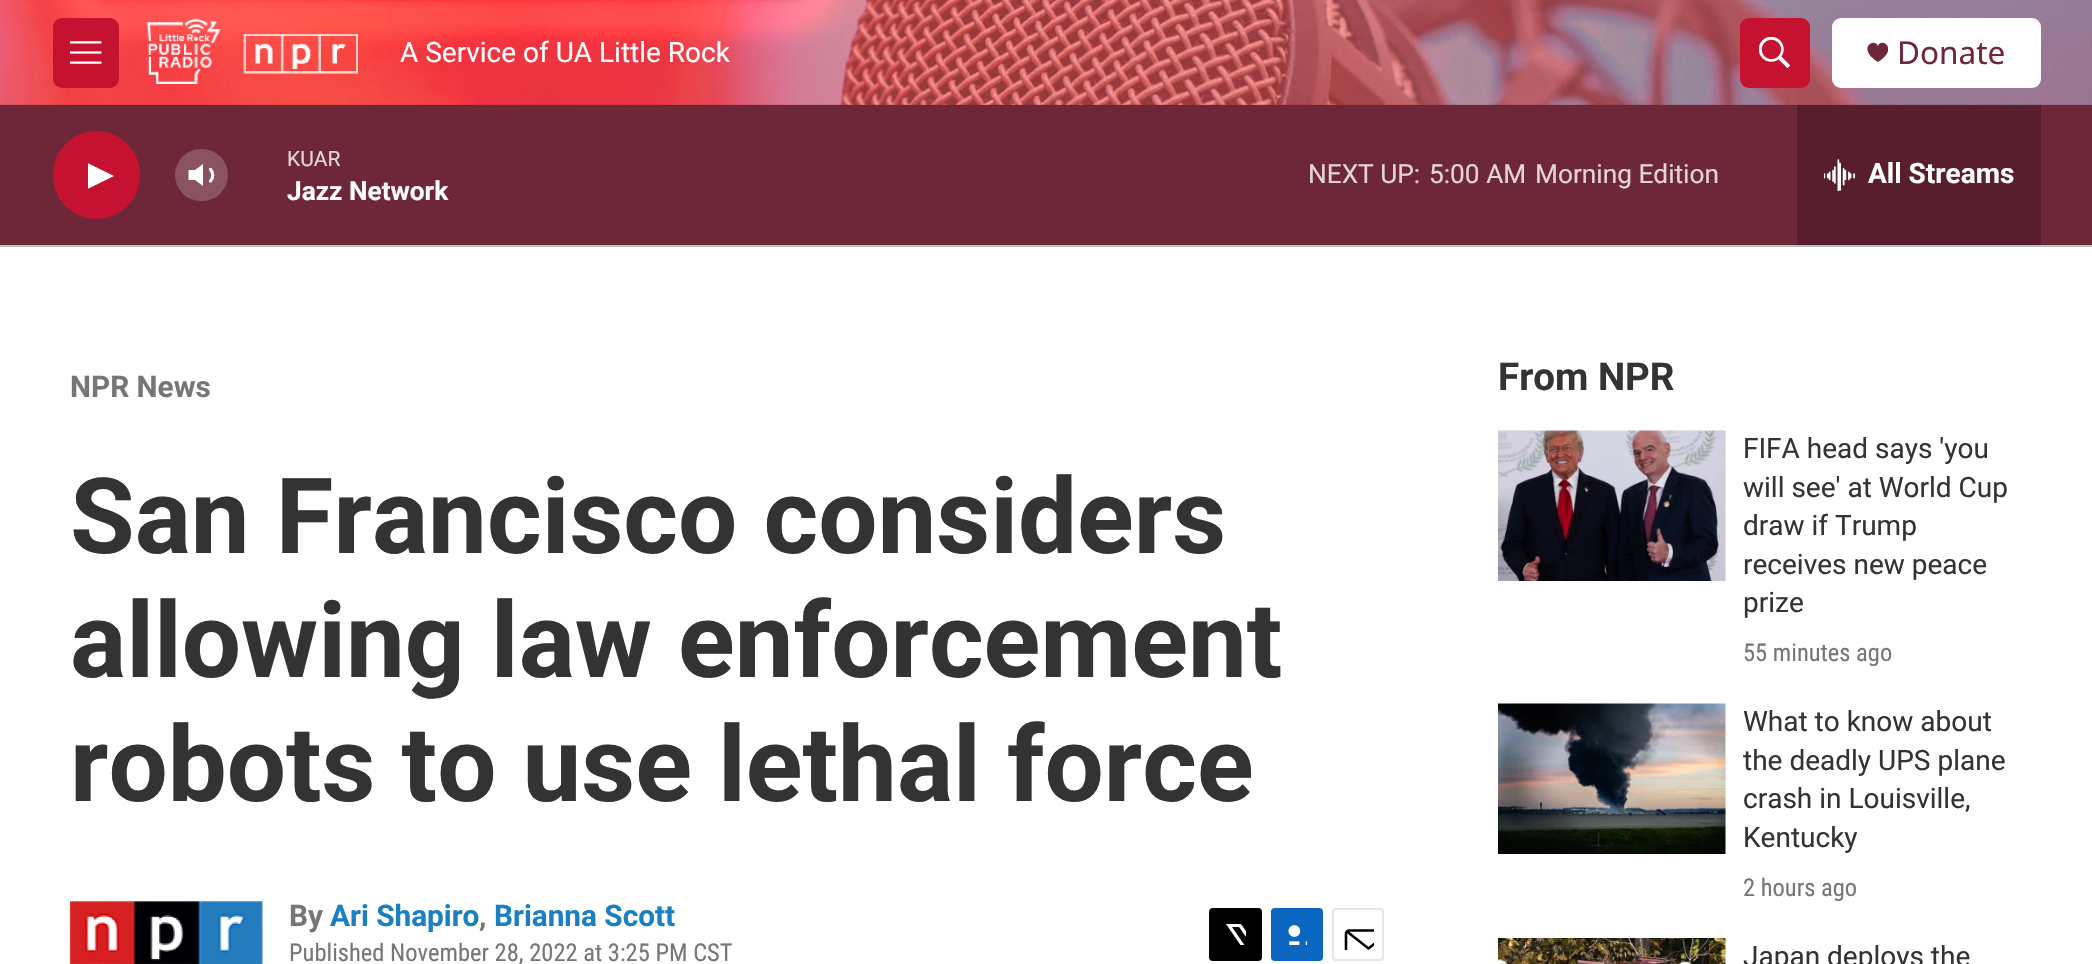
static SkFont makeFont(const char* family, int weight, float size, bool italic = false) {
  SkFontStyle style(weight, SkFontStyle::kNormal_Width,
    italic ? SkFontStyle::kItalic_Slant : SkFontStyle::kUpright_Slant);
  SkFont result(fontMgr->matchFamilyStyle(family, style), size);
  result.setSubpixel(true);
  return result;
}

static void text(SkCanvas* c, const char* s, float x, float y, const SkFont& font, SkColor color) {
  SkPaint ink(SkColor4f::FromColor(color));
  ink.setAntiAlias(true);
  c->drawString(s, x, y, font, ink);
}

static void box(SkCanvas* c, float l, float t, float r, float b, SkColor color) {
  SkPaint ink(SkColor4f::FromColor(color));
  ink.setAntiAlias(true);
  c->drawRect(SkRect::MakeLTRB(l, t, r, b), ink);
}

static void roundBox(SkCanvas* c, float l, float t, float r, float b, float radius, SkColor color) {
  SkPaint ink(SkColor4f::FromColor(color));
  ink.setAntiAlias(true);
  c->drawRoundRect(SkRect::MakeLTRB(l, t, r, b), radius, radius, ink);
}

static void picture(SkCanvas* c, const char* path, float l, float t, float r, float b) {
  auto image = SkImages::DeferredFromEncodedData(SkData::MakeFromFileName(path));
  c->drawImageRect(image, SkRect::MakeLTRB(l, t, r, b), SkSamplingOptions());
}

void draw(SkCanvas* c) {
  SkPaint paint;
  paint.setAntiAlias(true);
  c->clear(0xffffffff);
  box(c, 0, 104, 2092, 245, 0xff6e2639);
  box(c, 0, 245, 2092, 247, 0xffbdbdbd);
  picture(c, "img_01.png", 0, 0, 2092, 105);
  roundBox(c, 53, 18, 119, 88, 9, 0xffc41230);
  picture(c, "img_02.png", 70, 41, 102, 64);
  picture(c, "img_03.png", 146, 18, 358, 84);
  SkFont face1 = makeFont("Roboto", 400, 28);
  text(c, "A Service of UA Little Rock", 400, 62, face1, 0xffffffff);
  roundBox(c, 1740, 18, 1810, 88, 9, 0xffc41230);
  picture(c, "img_04.png", 1759, 37, 1790, 68);
  roundBox(c, 1832, 18, 2041, 88, 9, 0xffffffff);
  c->save();
  c->clipRect(SkRect::MakeLTRB(1867, 42, 1888, 63));
  paint.setColor(0xff6e2639);
  c->drawPath(SkPathBuilder().moveTo(1878, 46).cubicTo(1874.5f, 37, 1856, 48.5f, 1878, 62).cubicTo(1899.5f, 48.5f, 1881, 37, 1878, 46).close().detach(), paint);
  c->restore();
  SkFont face2 = makeFont("Noto Sans", 400, 31.5f);
  text(c, "Donate", 1897, 64, face2, 0xff6e2639);
  roundBox(c, 53, 131, 140, 219, 43.5f, 0xffc41230);
  c->save();
  c->clipRect(SkRect::MakeLTRB(88, 159, 114, 193));
  paint.setColor(0xffffffff);
  c->drawPath(SkPathBuilder().moveTo(87.5f, 163).lineTo(114, 176).lineTo(87.5f, 189).close().detach(), paint);
  c->restore();
  c->drawPath(SkPathBuilder().moveTo(203, 164).lineTo(195, 170).lineTo(188.5f, 170).lineTo(188.5f, 180).lineTo(195, 180).lineTo(203, 186).close().detach(), paint);
  paint.setStyle(SkPaint::kStroke_Style);
  paint.setStrokeWidth(3.2f);
  paint.setStrokeCap(SkPaint::kRound_Cap);
  paint.setStrokeJoin(SkPaint::kRound_Join);
  c->drawPath(SkPathBuilder().moveTo(210.5f, 169.5f).cubicTo(213.5f, 172.5f, 213.5f, 177.5f, 210.5f, 181).detach(), paint);
  roundBox(c, 175, 149, 228, 201, 26, 0x33ffffff);
  SkFont face3 = makeFont("Roboto", 400, 21);
  text(c, "KUAR", 287, 166, face3, 0xffe2d4d7);
  SkFont face4 = makeFont("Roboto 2", 700, 26.25f);
  text(c, "Jazz Network", 287, 200, face4, 0xffffffff);
  SkFont face5 = makeFont("Roboto", 400, 26.25f);
  text(c, "NEXT UP:", 1308, 183, face5, 0xffe2d4d7);
  text(c, "5:00 AM", 1429, 183, face5, 0xffe2d4d7);
  text(c, "Morning Edition", 1535, 183, face5, 0xffe2d4d7);
  box(c, 1797, 105, 2041, 245, 0xff581e2e);
  picture(c, "img_05.png", 1824, 159, 1855, 191);
  SkFont face6 = makeFont("Roboto 2", 700, 28);
  text(c, "All Streams", 1868, 183, face6, 0xffffffff);
  SkFont face7 = makeFont("Roboto", 700, 29.75f);
  text(c, "NPR News", 70, 397, face7, 0xff767676);
  SkFont face8 = makeFont("Roboto", 700, 105);
  text(c, "San Francisco considers", 70, 553, face8, 0xff333333);
  text(c, "allowing law enforcement", 70, 677, face8, 0xff333333);
  text(c, "robots to use lethal force", 70, 801, face8, 0xff333333);
  picture(c, "img_06.png", 70, 901, 263, 964);
  text(c, "By", 289, 926, face7, 0xff767676);
  text(c, "Ari Shapiro", 330, 926, face7, 0xff1a7fc3);
  text(c, ",", 479, 926, face7, 0xff767676);
  text(c, "Brianna Scott", 494, 926, face7, 0xff1a7fc3);
  SkFont face9 = makeFont("Roboto Condensed", 400, 24.5f);
  text(c, "Published November 28, 2022 at 3:25 PM CST", 289, 961, face9, 0xff767676);
  roundBox(c, 1209, 908, 1262, 961, 4, 0xff000000);
  c->save();
  c->clipRect(SkRect::MakeLTRB(1225, 924, 1246, 945));
  paint.setStyle(SkPaint::kFill_Style);
  c->drawPath(SkPathBuilder().moveTo(1256, 946).lineTo(1262, 954.5f).cubicTo(1262, 956, 1262, 958, 1261.5f, 959).lineTo(1239, 927).lineTo(1232, 927).lineTo(1255.5f, 961).lineTo(1251.5f, 961).lineTo(1248, 956).lineTo(1243.5f, 961).lineTo(1239, 961).lineTo(1246, 953).lineTo(1226, 924).lineTo(1241, 924).lineTo(1254, 943).lineTo(1262, 934).lineTo(1262, 939).close().detach(), paint);
  c->restore();
  roundBox(c, 1271, 908, 1323, 961, 4, 0xff0a66c1);
  picture(c, "img_07.png", 1288, 925, 1307, 945);
  paint.setStyle(SkPaint::kStroke_Style);
  paint.setStrokeWidth(2);
  paint.setStrokeCap(SkPaint::kButt_Cap);
  paint.setStrokeJoin(SkPaint::kMiter_Join);
  paint.setColor(0xffe6e6e6);
  c->drawRoundRect(SkRect::MakeLTRB(1333, 909, 1383, 960), 3, 3, paint);
  c->save();
  c->clipRect(SkRect::MakeLTRB(1342, 919, 1374, 950));
  paint.setStrokeWidth(2.6f);
  paint.setStrokeCap(SkPaint::kRound_Cap);
  paint.setStrokeJoin(SkPaint::kRound_Join);
  paint.setColor(0xff000000);
  c->drawPath(SkPathBuilder().moveTo(1391, 957).cubicTo(1391, 959, 1389.5f, 960.5f, 1388, 960.5f).lineTo(1349, 960.5f).cubicTo(1347.5f, 960.5f, 1346, 959, 1346, 957).lineTo(1346, 933.5f).cubicTo(1346, 932, 1347.5f, 930.5f, 1349, 930.5f).lineTo(1388, 930.5f).cubicTo(1389.5f, 930.5f, 1391, 932, 1391, 933.5f).close().moveTo(1390, 931.5f).lineTo(1368.5f, 948.5f).lineTo(1347, 931.5f).detach(), paint);
  c->restore();
  SkFont face10 = makeFont("Roboto", 700, 38.5f);
  text(c, "From NPR", 1498, 390, face10, 0xff333333);
  picture(c, "img_08.png", 1498, 430, 1726, 581);
  text(c, "FIFA head says 'you", 1743, 458, face1, 0xff333333);
  text(c, "will see' at World Cup", 1743, 497, face1, 0xff333333);
  text(c, "draw if Trump", 1743, 535, face1, 0xff333333);
  text(c, "receives new peace", 1743, 574, face1, 0xff333333);
  text(c, "prize", 1743, 612, face1, 0xff333333);
  text(c, "55 minutes ago", 1743, 661, face9, 0xff767676);
  picture(c, "img_09.png", 1498, 703, 1726, 854);
  text(c, "What to know about", 1743, 731, face1, 0xff333333);
  text(c, "the deadly UPS plane", 1743, 770, face1, 0xff333333);
  text(c, "crash in Louisville,", 1743, 808, face1, 0xff333333);
  text(c, "Kentucky", 1743, 847, face1, 0xff333333);
  text(c, "2 hours ago", 1743, 896, face9, 0xff767676);
  picture(c, "img_10.png", 1498, 938, 1726, 964);
  text(c, "Japan deploys the", 1743, 966, face1, 0xff333333);
}
